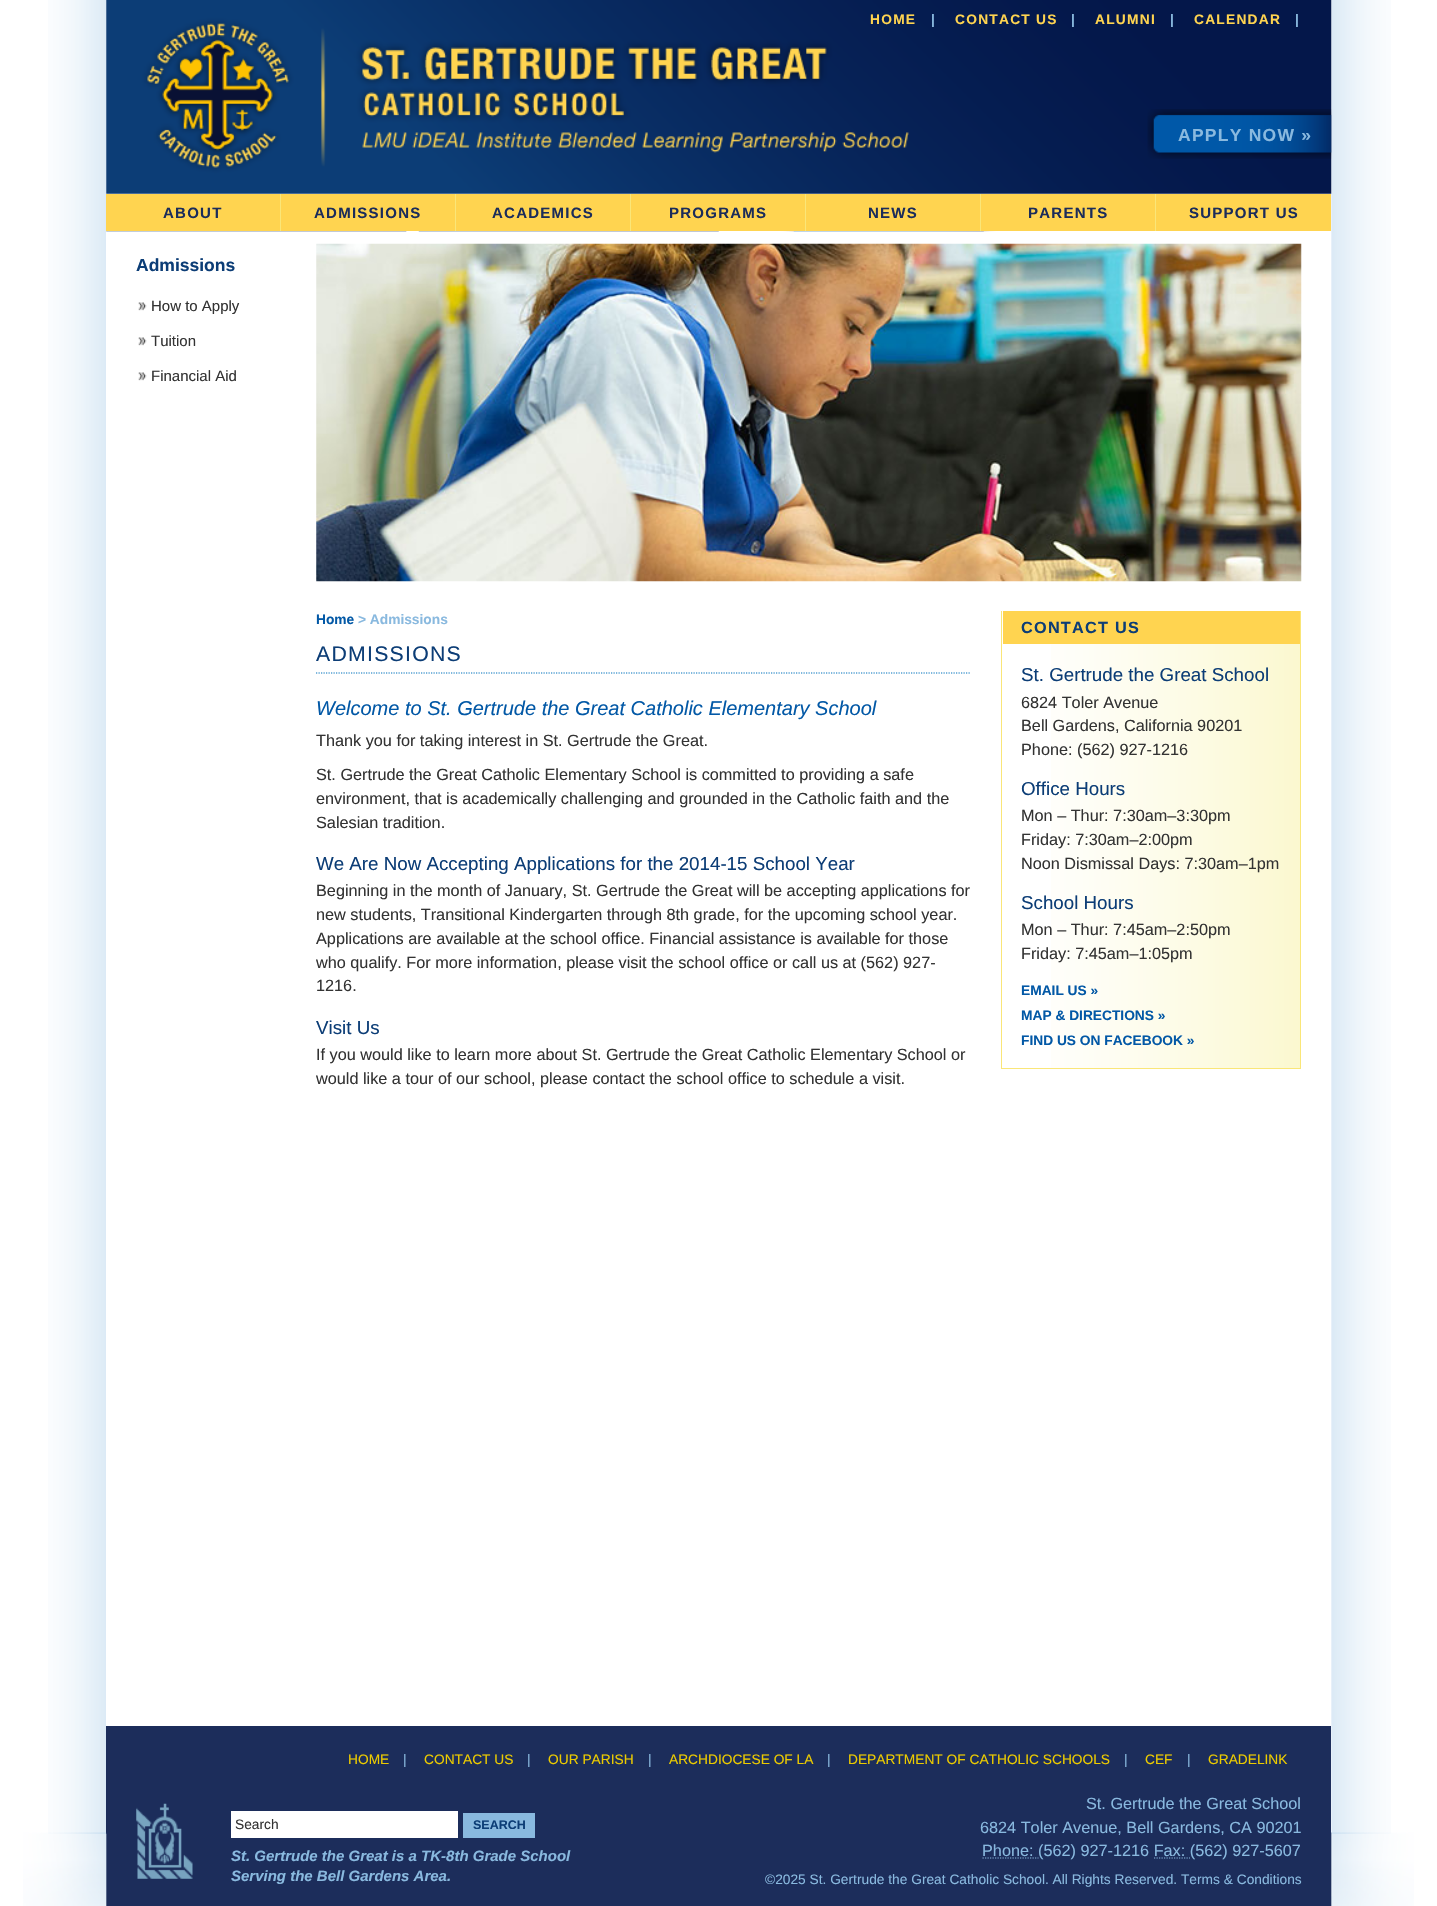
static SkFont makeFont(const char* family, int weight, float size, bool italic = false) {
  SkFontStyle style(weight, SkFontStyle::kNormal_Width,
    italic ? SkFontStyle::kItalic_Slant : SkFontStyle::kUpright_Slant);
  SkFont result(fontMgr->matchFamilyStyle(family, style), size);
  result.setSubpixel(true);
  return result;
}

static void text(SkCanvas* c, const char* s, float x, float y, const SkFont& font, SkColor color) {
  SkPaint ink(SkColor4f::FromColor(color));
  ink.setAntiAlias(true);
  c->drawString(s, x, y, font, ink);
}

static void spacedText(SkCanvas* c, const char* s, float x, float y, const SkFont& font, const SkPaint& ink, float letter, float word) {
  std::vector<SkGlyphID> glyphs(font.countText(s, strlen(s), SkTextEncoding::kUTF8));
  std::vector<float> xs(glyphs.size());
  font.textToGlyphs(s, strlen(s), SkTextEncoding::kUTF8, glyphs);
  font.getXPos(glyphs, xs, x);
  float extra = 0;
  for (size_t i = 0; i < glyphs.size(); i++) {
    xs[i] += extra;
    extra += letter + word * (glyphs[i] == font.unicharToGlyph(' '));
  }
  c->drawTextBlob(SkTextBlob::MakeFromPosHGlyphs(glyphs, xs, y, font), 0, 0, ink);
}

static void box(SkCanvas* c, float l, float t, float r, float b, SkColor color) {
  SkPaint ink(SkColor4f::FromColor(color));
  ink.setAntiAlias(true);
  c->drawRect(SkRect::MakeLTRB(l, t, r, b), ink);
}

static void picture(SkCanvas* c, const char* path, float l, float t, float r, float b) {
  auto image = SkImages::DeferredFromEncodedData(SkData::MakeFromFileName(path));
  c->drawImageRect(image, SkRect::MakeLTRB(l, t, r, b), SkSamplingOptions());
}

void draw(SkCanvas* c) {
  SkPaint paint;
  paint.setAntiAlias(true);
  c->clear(0xffffffff);
  picture(c, "img_01.png", 48, 0, 1391, 1834);
  box(c, 106, 0, 107, 1726, 0xffffffff);
  picture(c, "img_02.png", 106, 0, 1332, 232);
  SkFont face1 = makeFont("Liberation Sans", 700, 13.75f);
  paint.setColor(0xffffd450);
  spacedText(c, "HOME", 870, 24, face1, paint, 1.25f, 0);
  paint.setColor(0xff89b9df);
  spacedText(c, "|", 931, 24, face1, paint, 1.25f, 0);
  paint.setColor(0xffffd450);
  spacedText(c, "CONTACT US", 955, 24, face1, paint, 1.25f, 0);
  paint.setColor(0xff89b9df);
  spacedText(c, "|", 1071, 24, face1, paint, 1.25f, 0);
  paint.setColor(0xffffd450);
  spacedText(c, "ALUMNI", 1095, 24, face1, paint, 1.25f, 0);
  paint.setColor(0xff89b9df);
  spacedText(c, "|", 1170, 24, face1, paint, 1.25f, 0);
  paint.setColor(0xffffd450);
  spacedText(c, "CALENDAR", 1194, 24, face1, paint, 1.25f, 0);
  paint.setColor(0xff89b9df);
  spacedText(c, "|", 1295, 24, face1, paint, 1.25f, 0);
  picture(c, "img_03.png", 1147, 109, 1332, 159);
  SkFont face2 = makeFont("Liberation Sans", 700, 17.5f);
  spacedText(c, "APPLY NOW »", 1178, 141, face2, paint, 1.25f, 0);
  box(c, 106, 194, 280, 231, 0xffffd450);
  box(c, 280, 194, 281, 231, 0xfffae678);
  SkFont face3 = makeFont("Liberation Sans", 700, 15);
  paint.setColor(0xff1b2c5a);
  spacedText(c, "ABOUT", 163, 218, face3, paint, 1.25f, 0);
  box(c, 281, 194, 455, 231, 0xffffd450);
  box(c, 455, 194, 456, 231, 0xfffae678);
  spacedText(c, "ADMISSIONS", 314, 218, face3, paint, 1.25f, 0);
  box(c, 456, 194, 630, 231, 0xffffd450);
  box(c, 630, 194, 631, 231, 0xfffae678);
  spacedText(c, "ACADEMICS", 492, 218, face3, paint, 1.25f, 0);
  box(c, 631, 194, 805, 231, 0xffffd450);
  box(c, 805, 194, 806, 231, 0xfffae678);
  spacedText(c, "PROGRAMS", 669, 218, face3, paint, 1.25f, 0);
  box(c, 806, 194, 980, 231, 0xffffd450);
  box(c, 980, 194, 981, 231, 0xfffae678);
  spacedText(c, "NEWS", 868, 218, face3, paint, 1.25f, 0);
  box(c, 981, 194, 1155, 231, 0xffffd450);
  box(c, 1155, 194, 1156, 231, 0xfffae678);
  spacedText(c, "PARENTS", 1028, 218, face3, paint, 1.25f, 0);
  box(c, 1156, 194, 1331, 231, 0xffffd450);
  spacedText(c, "SUPPORT US", 1189, 218, face3, paint, 1.25f, 0);
  text(c, "Admissions", 136, 271, face2, 0xff0c3d76);
  picture(c, "img_04.png", 138, 302, 147, 311);
  SkFont face4 = makeFont("Liberation Sans", 400, 15);
  text(c, "How to Apply", 151, 311, face4, 0xff333333);
  picture(c, "img_04.png", 138, 337, 147, 346);
  text(c, "Tuition", 151, 346, face4, 0xff333333);
  picture(c, "img_04.png", 138, 372, 147, 381);
  text(c, "Financial Aid", 151, 381, face4, 0xff333333);
  picture(c, "img_05.png", 316, 243, 1302, 582);
  text(c, "Home", 316, 624, face1, 0xff0258a6);
  text(c, "> Admissions", 358, 624, face1, 0xff89b9df);
  paint.setStyle(SkPaint::kStroke_Style);
  paint.setStrokeWidth(1.2f);
  paint.setColor(0xff0072be);
  paint.setPathEffect(SkDashPathEffect::Make({{1.25f, 1.25f}}, 0));
  c->drawPath(SkPathBuilder().moveTo(316, 673).lineTo(971, 673).detach(), paint);
  paint.setPathEffect(nullptr);
  SkFont face5 = makeFont("Liberation Sans", 400, 21.25f);
  paint.setStyle(SkPaint::kFill_Style);
  paint.setColor(0xff0c3d76);
  spacedText(c, "ADMISSIONS", 316, 661, face5, paint, 1.25f, 0);
  SkFont face6 = makeFont("Liberation Sans", 400, 20, true);
  text(c, "Welcome to St. Gertrude the Great Catholic Elementary School", 316, 715, face6, 0xff0258a6);
  SkFont face7 = makeFont("Liberation Sans", 400, 16.25f);
  text(c, "Thank you for taking interest in St. Gertrude the Great.", 316, 746, face7, 0xff333333);
  text(c, "St. Gertrude the Great Catholic Elementary School is committed to providing a safe", 316, 780, face7, 0xff333333);
  text(c, "environment, that is academically challenging and grounded in the Catholic faith and the", 316, 804, face7, 0xff333333);
  text(c, "Salesian tradition.", 316, 828, face7, 0xff333333);
  SkFont face8 = makeFont("Liberation Sans", 400, 18.75f);
  text(c, "We Are Now Accepting Applications for the 2014-15 School Year", 316, 870, face8, 0xff0c3d76);
  text(c, "Beginning in the month of January, St. Gertrude the Great will be accepting applications for", 316, 896, face7, 0xff333333);
  text(c, "new students, Transitional Kindergarten through 8th grade, for the upcoming school year.", 316, 920, face7, 0xff333333);
  text(c, "Applications are available at the school office. Financial assistance is available for those", 316, 944, face7, 0xff333333);
  text(c, "who qualify. For more information, please visit the school office or call us at (562) 927-", 316, 968, face7, 0xff333333);
  text(c, "1216.", 316, 991, face7, 0xff333333);
  text(c, "Visit Us", 316, 1034, face8, 0xff0c3d76);
  text(c, "If you would like to learn more about St. Gertrude the Great Catholic Elementary School or", 316, 1060, face7, 0xff333333);
  text(c, "would like a tour of our school, please contact the school office to schedule a visit.", 316, 1084, face7, 0xff333333);
  picture(c, "img_06.png", 1051, 644, 1300, 1068);
  box(c, 1300, 611, 1301, 1069, 0xfffae678);
  box(c, 1001, 1068, 1301, 1069, 0xfffae678);
  box(c, 1001, 611, 1002, 1069, 0xfffae678);
  box(c, 1003, 611, 1300, 644, 0xffffd450);
  SkFont face9 = makeFont("Liberation Sans", 700, 16.25f);
  spacedText(c, "CONTACT US", 1021, 633, face9, paint, 1.25f, 0);
  text(c, "St. Gertrude the Great School", 1021, 681, face8, 0xff0c3d76);
  text(c, "6824 Toler Avenue", 1021, 708, face7, 0xff333333);
  text(c, "Bell Gardens, California 90201", 1021, 731, face7, 0xff333333);
  text(c, "Phone: (562) 927-1216", 1021, 755, face7, 0xff333333);
  text(c, "Office Hours", 1021, 795, face8, 0xff0c3d76);
  text(c, "Mon – Thur: 7:30am–3:30pm", 1021, 821, face7, 0xff333333);
  text(c, "Friday: 7:30am–2:00pm", 1021, 845, face7, 0xff333333);
  text(c, "Noon Dismissal Days: 7:30am–1pm", 1021, 869, face7, 0xff333333);
  text(c, "School Hours", 1021, 909, face8, 0xff0c3d76);
  text(c, "Mon – Thur: 7:45am–2:50pm", 1021, 935, face7, 0xff333333);
  text(c, "Friday: 7:45am–1:05pm", 1021, 959, face7, 0xff333333);
  text(c, "EMAIL US »", 1021, 995, face1, 0xff0258a6);
  text(c, "MAP & DIRECTIONS »", 1021, 1020, face1, 0xff0258a6);
  text(c, "FIND US ON FACEBOOK »", 1021, 1045, face1, 0xff0258a6);
  box(c, 106, 1726, 1331, 1834, 0xff1c2d5b);
  SkFont face10 = makeFont("Liberation Sans", 400, 13.75f);
  text(c, "HOME", 348, 1764, face10, 0xffeccb00);
  text(c, "|", 403, 1764, face10, 0xff89b9df);
  text(c, "CONTACT US", 424, 1764, face10, 0xffeccb00);
  text(c, "|", 527, 1764, face10, 0xff89b9df);
  text(c, "OUR PARISH", 548, 1764, face10, 0xffeccb00);
  text(c, "|", 648, 1764, face10, 0xff89b9df);
  text(c, "ARCHDIOCESE OF LA", 669, 1764, face10, 0xffeccb00);
  text(c, "|", 827, 1764, face10, 0xff89b9df);
  text(c, "DEPARTMENT OF CATHOLIC SCHOOLS", 848, 1764, face10, 0xffeccb00);
  text(c, "|", 1124, 1764, face10, 0xff89b9df);
  text(c, "CEF", 1145, 1764, face10, 0xffeccb00);
  text(c, "|", 1187, 1764, face10, 0xff89b9df);
  text(c, "GRADELINK", 1208, 1764, face10, 0xffeccb00);
  picture(c, "img_08.png", 23, 1832, 1414, 1906);
  picture(c, "img_07.png", 136, 1803, 193, 1879);
  box(c, 231, 1811, 458, 1838, 0xffffffff);
  text(c, "Search", 235, 1829, face10, 0xff333333);
  box(c, 463, 1813, 535, 1838, 0xff89b9df);
  SkFont face11 = makeFont("Liberation Sans", 700, 12.5f);
  text(c, "SEARCH", 473, 1829, face11, 0xff0c3d76);
  text(c, "St. Gertrude the Great School", 1086, 1809, face7, 0xff89b9df);
  text(c, "6824 Toler Avenue, Bell Gardens, CA 90201", 980, 1833, face7, 0xff89b9df);
  paint.setStyle(SkPaint::kStroke_Style);
  paint.setColor(0xff89b9df);
  paint.setPathEffect(SkDashPathEffect::Make({{1.25f, 1.25f}}, 0));
  c->drawPath(SkPathBuilder().moveTo(982.5f, 1858).lineTo(1038.5f, 1858).detach(), paint);
  paint.setPathEffect(nullptr);
  text(c, "Phone: (562) 927-1216 Fax: (562) 927-5607", 982, 1856, face7, 0xff89b9df);
  paint.setPathEffect(SkDashPathEffect::Make({{1.25f, 1.25f}}, 0));
  c->drawPath(SkPathBuilder().moveTo(1154, 1858).lineTo(1190, 1858).detach(), paint);
  paint.setPathEffect(nullptr);
  SkFont face12 = makeFont("Liberation Sans", 700, 15, true);
  text(c, "St. Gertrude the Great is a TK-8th Grade School", 231, 1861, face12, 0xff89b9df);
  text(c, "Serving the Bell Gardens Area.", 231, 1881, face12, 0xff89b9df);
  text(c, "©2025 St. Gertrude the Great Catholic School. All Rights Reserved. Terms & Conditions", 765, 1884, face10, 0xff89b9df);
}
